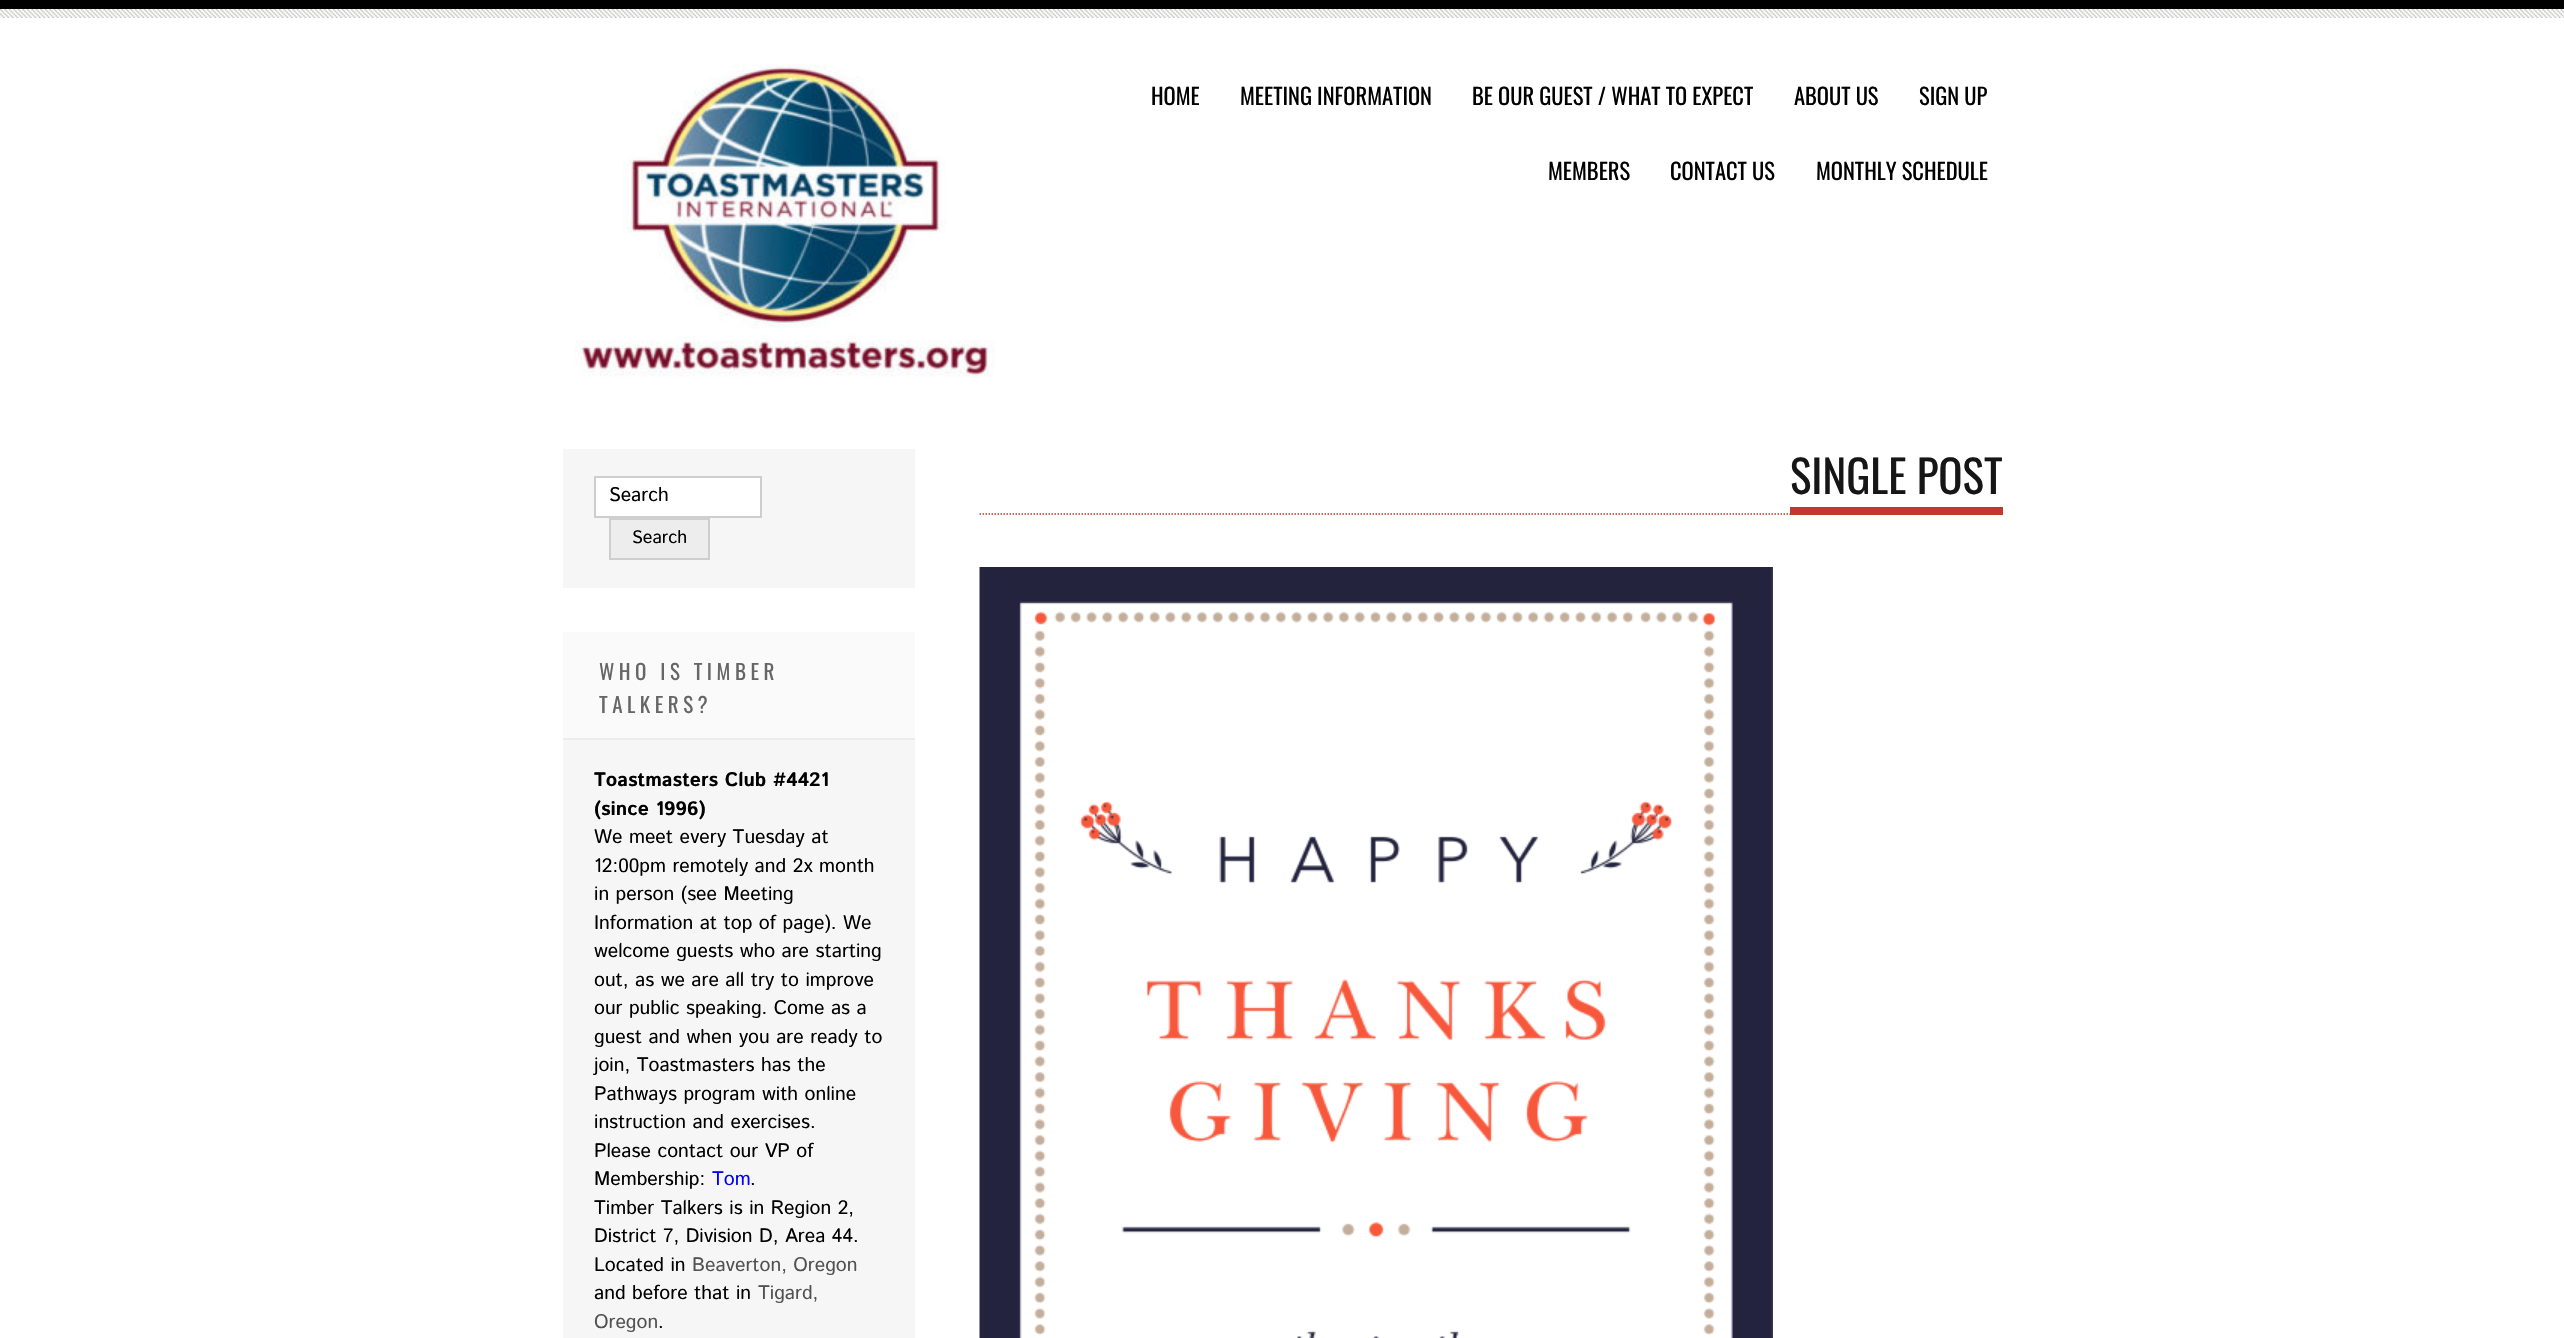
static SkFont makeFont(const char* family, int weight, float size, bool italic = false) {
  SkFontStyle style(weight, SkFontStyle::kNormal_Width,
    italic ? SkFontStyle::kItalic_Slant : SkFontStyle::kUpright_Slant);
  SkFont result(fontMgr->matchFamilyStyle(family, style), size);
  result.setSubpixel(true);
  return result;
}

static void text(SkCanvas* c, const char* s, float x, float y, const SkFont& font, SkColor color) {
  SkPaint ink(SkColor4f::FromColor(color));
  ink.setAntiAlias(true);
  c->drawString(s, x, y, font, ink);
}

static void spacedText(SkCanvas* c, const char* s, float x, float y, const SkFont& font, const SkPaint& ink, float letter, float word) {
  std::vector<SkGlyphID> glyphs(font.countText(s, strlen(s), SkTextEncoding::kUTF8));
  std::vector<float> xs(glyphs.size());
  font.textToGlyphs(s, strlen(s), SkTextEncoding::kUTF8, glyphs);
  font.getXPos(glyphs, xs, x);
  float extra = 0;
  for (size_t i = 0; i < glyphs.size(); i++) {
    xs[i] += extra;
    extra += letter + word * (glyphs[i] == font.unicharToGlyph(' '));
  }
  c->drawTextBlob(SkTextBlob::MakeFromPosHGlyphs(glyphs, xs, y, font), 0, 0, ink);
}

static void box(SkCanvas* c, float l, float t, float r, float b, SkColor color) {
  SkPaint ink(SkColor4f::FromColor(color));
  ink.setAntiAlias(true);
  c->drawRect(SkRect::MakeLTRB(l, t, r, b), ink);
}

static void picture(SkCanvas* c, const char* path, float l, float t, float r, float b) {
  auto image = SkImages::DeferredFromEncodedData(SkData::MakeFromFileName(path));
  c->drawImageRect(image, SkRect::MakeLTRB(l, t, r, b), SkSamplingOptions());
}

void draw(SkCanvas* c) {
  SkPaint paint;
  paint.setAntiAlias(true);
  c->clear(0xffffffff);
  box(c, 0, 0, 2564, 9, 0xff000000);
  picture(c, "img_01.png", 0, 9, 2564, 18);
  picture(c, "img_02.png", 574, 64, 995, 377);
  SkFont face1 = makeFont("Oswald", 400, 22.5f);
  text(c, "HOME", 1151, 105, face1, 0xff000000);
  text(c, "MEETING INFORMATION", 1240, 105, face1, 0xff000000);
  text(c, "BE OUR GUEST / WHAT TO EXPECT", 1472, 105, face1, 0xff000000);
  text(c, "ABOUT US", 1794, 105, face1, 0xff000000);
  text(c, "SIGN UP", 1919, 105, face1, 0xff000000);
  text(c, "MEMBERS", 1548, 180, face1, 0xff000000);
  text(c, "CONTACT US", 1670, 180, face1, 0xff000000);
  text(c, "MONTHLY SCHEDULE", 1816, 180, face1, 0xff000000);
  paint.setStyle(SkPaint::kStroke_Style);
  paint.setStrokeWidth(1.5f);
  paint.setColor(0xffc0392b);
  paint.setPathEffect(SkDashPathEffect::Make({{1.5f, 1.5f}}, 0));
  c->drawPath(SkPathBuilder().moveTo(979.5f, 514).lineTo(2002.5f, 514).detach(), paint);
  paint.setPathEffect(nullptr);
  box(c, 1790, 507, 2003, 515, 0xffc0392b);
  SkFont face2 = makeFont("Oswald", 400, 45);
  text(c, "SINGLE POST", 1790, 494, face2, 0xff161616);
  picture(c, "img_03.png", 979, 567, 1773, 1338);
  box(c, 563, 449, 915, 588, 0xfff6f6f6);
  paint.setStyle(SkPaint::kFill_Style);
  paint.setColor(0xffffffff);
  c->drawRect(SkRect::MakeLTRB(595, 477, 761, 517), paint);
  paint.setStyle(SkPaint::kStroke_Style);
  paint.setStrokeWidth(2);
  paint.setColor(0xffcecece);
  c->drawRect(SkRect::MakeLTRB(595, 477, 761, 517), paint);
  SkFont face3 = makeFont("Istok Web", 400, 19.5f);
  text(c, "Search", 609, 501, face3, 0xff000000);
  paint.setStyle(SkPaint::kFill_Style);
  paint.setColor(0xffededed);
  c->drawRect(SkRect::MakeLTRB(610, 519, 709, 559), paint);
  paint.setStyle(SkPaint::kStroke_Style);
  paint.setColor(0xffcecece);
  c->drawRect(SkRect::MakeLTRB(610, 519, 709, 559), paint);
  SkFont face4 = makeFont("Istok Web", 400, 18);
  text(c, "Search", 632, 543, face4, 0xff000000);
  box(c, 563, 632, 915, 738, 0xfffafafa);
  box(c, 563, 738, 915, 740, 0xffececec);
  SkFont face5 = makeFont("Oswald", 400, 21);
  paint.setStyle(SkPaint::kFill_Style);
  paint.setColor(0xff666666);
  spacedText(c, "WHO IS TIMBER", 599, 680, face5, paint, 4.5f, 0);
  spacedText(c, "TALKERS?", 599, 713, face5, paint, 4.5f, 0);
  box(c, 563, 740, 915, 1338, 0xfff6f6f6);
  SkFont face6 = makeFont("Istok Web", 700, 19.5f);
  text(c, "Toastmasters Club #4421", 594, 786, face6, 0xff000000);
  text(c, "(since 1996)", 594, 815, face6, 0xff000000);
  text(c, "We meet every Tuesday at", 594, 843, face3, 0xff000000);
  text(c, "12:00pm remotely and 2x month", 594, 872, face3, 0xff000000);
  text(c, "in person (see Meeting", 594, 900, face3, 0xff000000);
  text(c, "Information at top of page). We", 594, 929, face3, 0xff000000);
  text(c, "welcome guests who are starting", 594, 957, face3, 0xff000000);
  text(c, "out, as we are all try to improve", 594, 986, face3, 0xff000000);
  text(c, "our public speaking. Come as a", 594, 1014, face3, 0xff000000);
  text(c, "guest and when you are ready to", 594, 1043, face3, 0xff000000);
  text(c, "join, Toastmasters has the", 594, 1071, face3, 0xff000000);
  text(c, "Pathways program with online", 594, 1100, face3, 0xff000000);
  text(c, "instruction and exercises.", 594, 1128, face3, 0xff000000);
  text(c, "Please contact our VP of", 594, 1157, face3, 0xff000000);
  text(c, "Membership:", 594, 1185, face3, 0xff000000);
  text(c, "Tom", 712, 1185, face3, 0xff0000ff);
  text(c, ".", 750, 1185, face3, 0xff000000);
  text(c, "Timber Talkers is in Region 2,", 594, 1214, face3, 0xff000000);
  text(c, "District 7, Division D, Area 44.", 594, 1242, face3, 0xff000000);
  text(c, "Located in", 594, 1271, face3, 0xff000000);
  text(c, "Beaverton, Oregon", 692, 1271, face3, 0xff515151);
  text(c, "and before that in", 594, 1299, face3, 0xff000000);
  text(c, "Tigard,", 758, 1299, face3, 0xff515151);
  text(c, "Oregon", 594, 1328, face3, 0xff515151);
  text(c, ".", 658, 1328, face3, 0xff000000);
}
